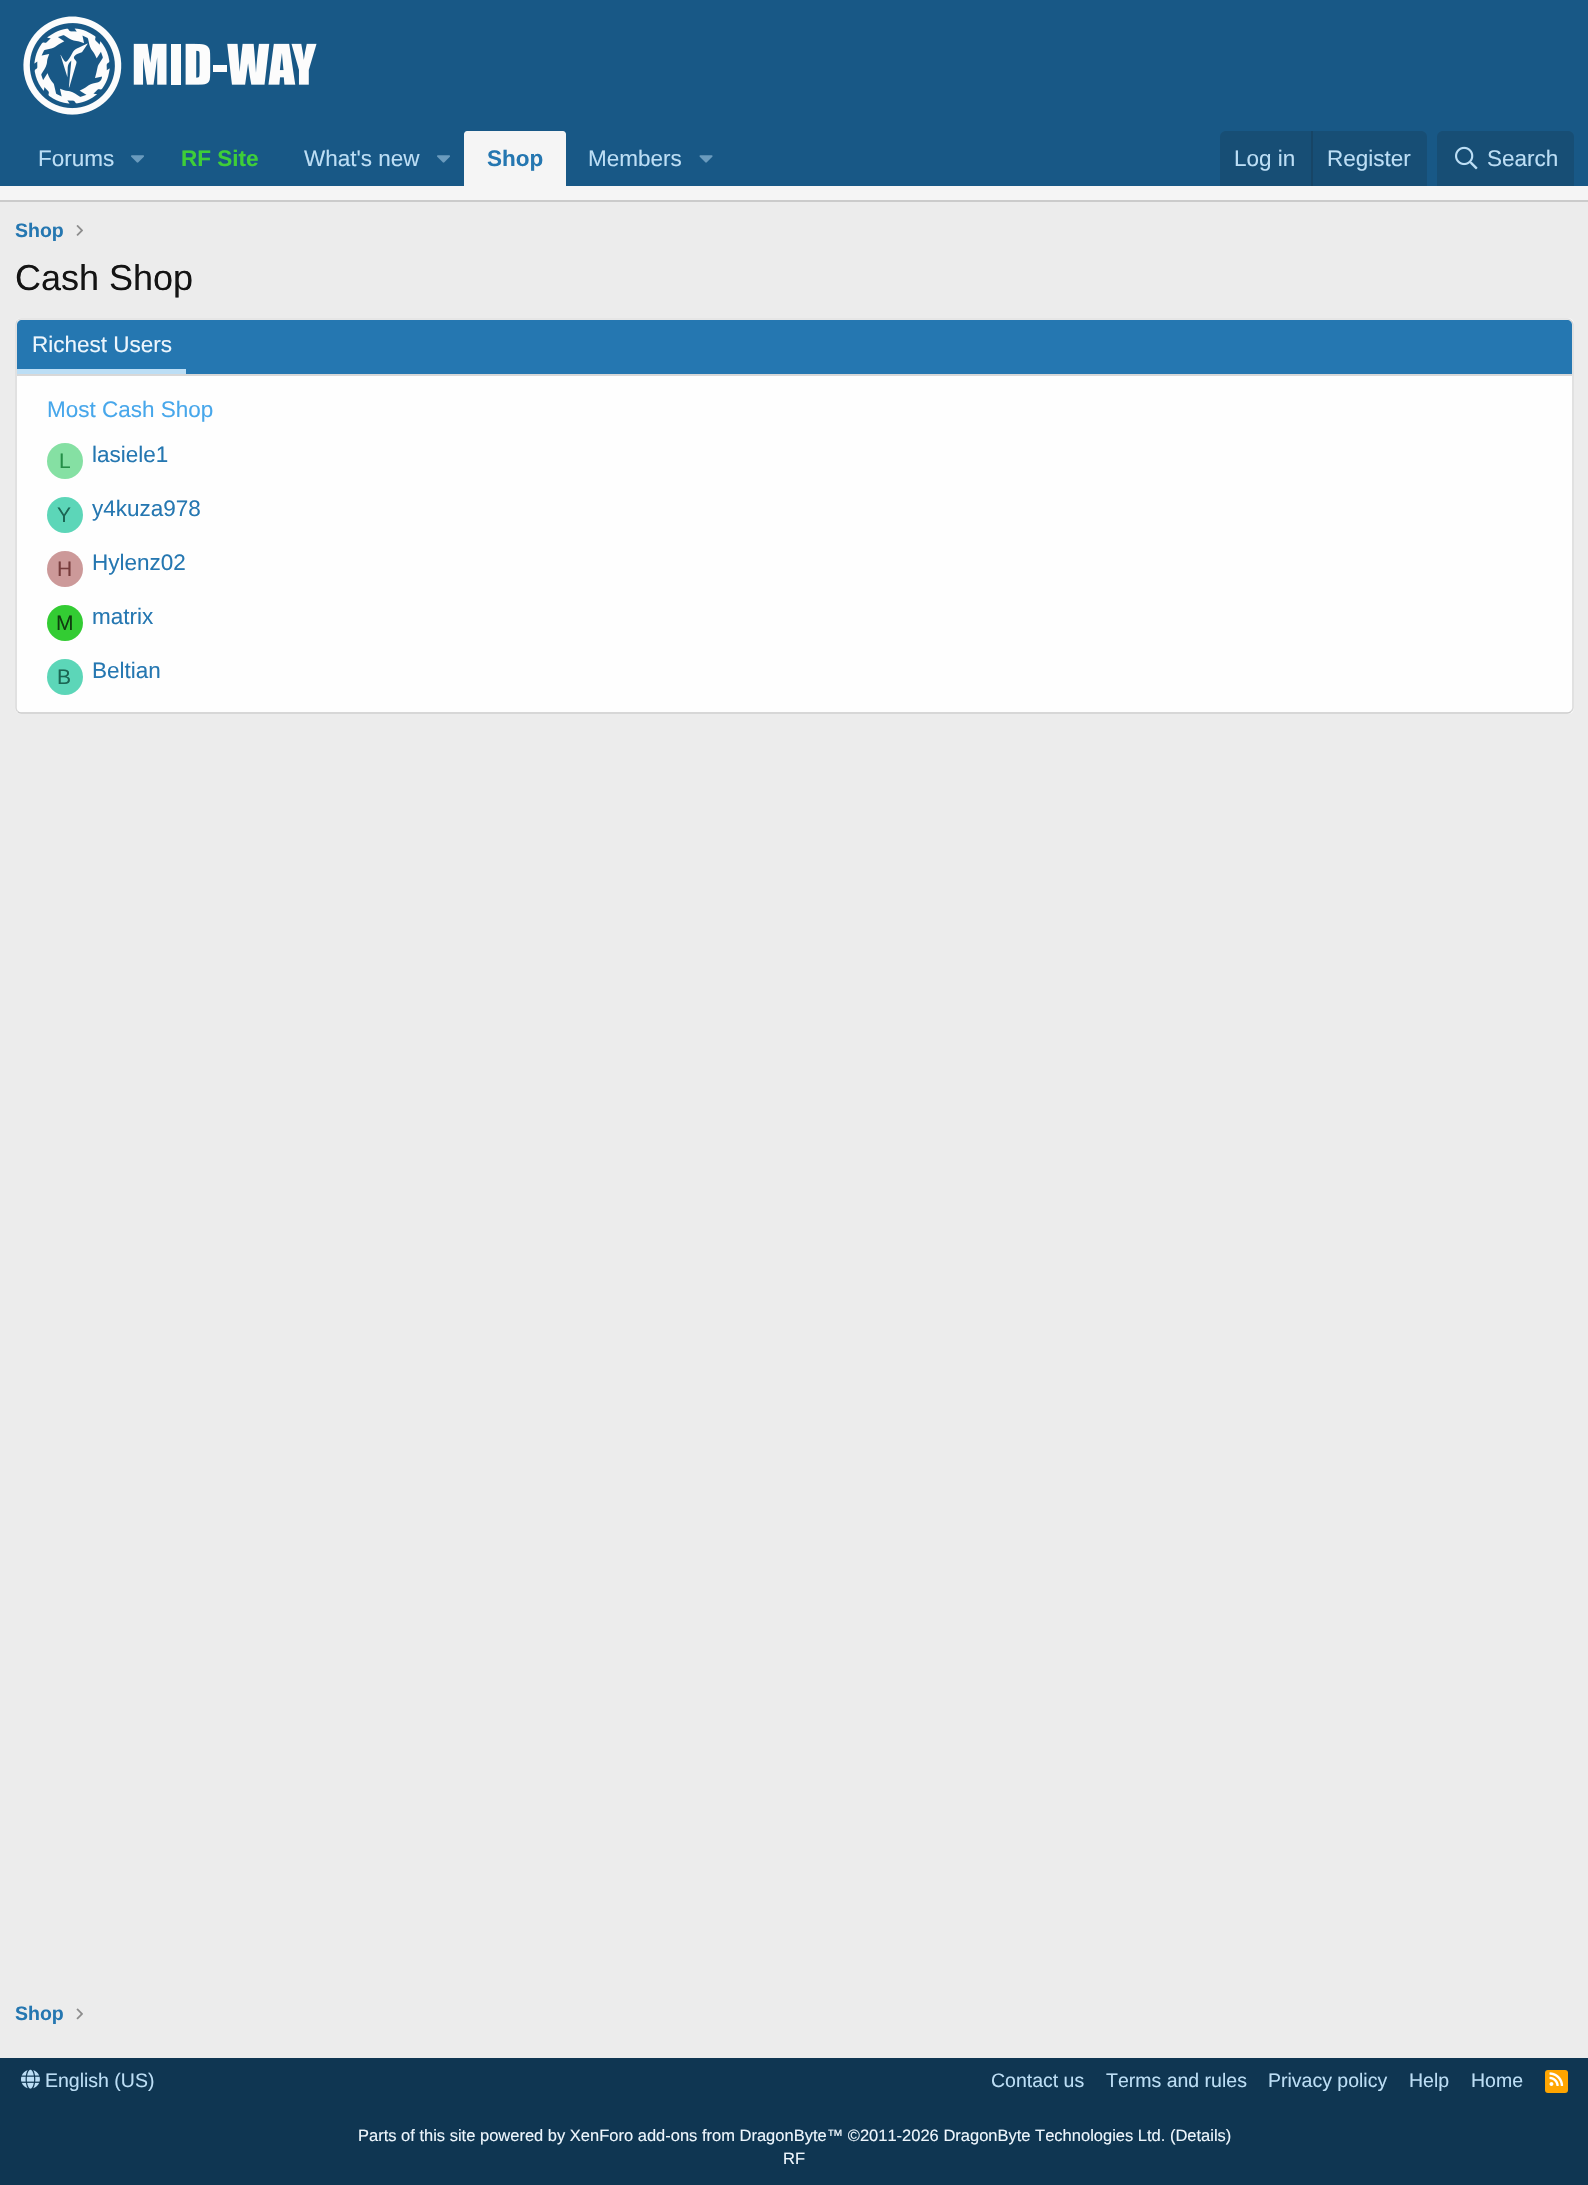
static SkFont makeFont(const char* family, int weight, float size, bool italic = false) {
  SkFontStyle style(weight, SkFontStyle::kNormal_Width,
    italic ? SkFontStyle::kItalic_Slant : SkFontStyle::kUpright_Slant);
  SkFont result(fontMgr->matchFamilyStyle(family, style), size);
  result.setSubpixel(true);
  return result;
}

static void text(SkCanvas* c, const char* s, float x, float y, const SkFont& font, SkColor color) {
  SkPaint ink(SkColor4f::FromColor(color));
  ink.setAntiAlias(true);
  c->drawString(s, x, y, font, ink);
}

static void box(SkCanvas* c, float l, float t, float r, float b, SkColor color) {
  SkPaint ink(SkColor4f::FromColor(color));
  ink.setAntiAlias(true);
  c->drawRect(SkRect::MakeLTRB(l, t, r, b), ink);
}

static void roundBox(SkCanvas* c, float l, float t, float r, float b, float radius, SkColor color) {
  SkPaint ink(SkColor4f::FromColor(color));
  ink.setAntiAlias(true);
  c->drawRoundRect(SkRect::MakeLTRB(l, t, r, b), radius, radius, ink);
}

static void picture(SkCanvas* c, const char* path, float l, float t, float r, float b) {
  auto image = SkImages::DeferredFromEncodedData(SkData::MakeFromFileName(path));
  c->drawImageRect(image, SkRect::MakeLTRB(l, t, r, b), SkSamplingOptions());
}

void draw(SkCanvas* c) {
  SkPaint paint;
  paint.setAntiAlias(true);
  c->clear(0xffececec);
  box(c, 0, 0, 1588, 186, 0xff185886);
  picture(c, "img_01.png", 23, 16, 317, 115);
  SkFont face1 = makeFont("Liberation Sans", 400, 22.5f);
  text(c, "Forums", 38, 166, face1, 0xffbcdef5);
  picture(c, "img_02.png", 131, 155, 144, 163);
  SkFont face2 = makeFont("Liberation Sans", 700, 22.5f);
  text(c, "RF Site", 181, 166, face2, 0xff3ece38);
  text(c, "What's new", 304, 166, face1, 0xffbcdef5);
  picture(c, "img_02.png", 437, 155, 450, 163);
  paint.setColor(0xfff5f5f5);
  c->drawPath(SkPathBuilder().moveTo(467, 131).lineTo(563, 131).cubicTo(564.5f, 131, 566, 132.5f, 566, 134).lineTo(566, 186).lineTo(464, 186).lineTo(464, 134).cubicTo(464, 132.5f, 465.5f, 131, 467, 131).close().detach(), paint);
  text(c, "Shop", 487, 166, face2, 0xff2577b1);
  text(c, "Members", 588, 166, face1, 0xffbcdef5);
  picture(c, "img_03.png", 699, 155, 713, 163);
  paint.setColor(0xff174e75);
  c->drawPath(SkPathBuilder().moveTo(1226, 131).lineTo(1421, 131).cubicTo(1424.5f, 131, 1427, 133.5f, 1427, 137).lineTo(1427, 186).lineTo(1220, 186).lineTo(1220, 137).cubicTo(1220, 133.5f, 1222.5f, 131, 1226, 131).close().detach(), paint);
  text(c, "Log in", 1234, 166, face1, 0xffbcdef5);
  box(c, 1311, 131, 1313, 186, 0xff174566);
  text(c, "Register", 1327, 166, face1, 0xffbcdef5);
  c->drawPath(SkPathBuilder().moveTo(1443, 131).lineTo(1568, 131).cubicTo(1571.5f, 131, 1574, 133.5f, 1574, 137).lineTo(1574, 186).lineTo(1437, 186).lineTo(1437, 137).cubicTo(1437, 133.5f, 1439.5f, 131, 1443, 131).close().detach(), paint);
  picture(c, "img_04.png", 1455, 146, 1478, 170);
  text(c, "Search", 1487, 166, face1, 0xffbcdef5);
  box(c, 0, 186, 1588, 200, 0xfff5f5f5);
  box(c, 0, 200, 1588, 202, 0xffcbcbcb);
  SkFont face3 = makeFont("Liberation Sans", 700, 19.5f);
  text(c, "Shop", 15, 237, face3, 0xff2577b1);
  picture(c, "img_05.png", 76, 225, 83, 236);
  SkFont face4 = makeFont("Liberation Sans", 400, 36);
  text(c, "Cash Shop", 15, 290, face4, 0xff141414);
  roundBox(c, 15, 318, 1574, 714, 6, 0xfffefefe);
  paint.setStyle(SkPaint::kStroke_Style);
  paint.setStrokeWidth(1.5f);
  paint.setColor(0xffdfdfdf);
  c->drawPath(SkPathBuilder().moveTo(17.5f, 320.5f).cubicTo(18.5f, 319.5f, 19.5f, 319, 21, 319).lineTo(1567.5f, 319).cubicTo(1569, 319, 1570, 319.5f, 1571, 320.5f).detach(), paint);
  paint.setColor(0xffd8d8d8);
  c->drawPath(SkPathBuilder().moveTo(1571, 320.5f).cubicTo(1572, 321.5f, 1573, 322.5f, 1573, 324).lineTo(1573, 708).cubicTo(1573, 709.5f, 1572, 710.5f, 1571, 711.5f).detach(), paint);
  paint.setColor(0xffcbcbcb);
  c->drawPath(SkPathBuilder().moveTo(1571, 711.5f).cubicTo(1570, 712.5f, 1569, 713, 1567.5f, 713).lineTo(21, 713).cubicTo(19.5f, 713, 18.5f, 712.5f, 17.5f, 711.5f).detach(), paint);
  paint.setColor(0xffd8d8d8);
  c->drawPath(SkPathBuilder().moveTo(17.5f, 711.5f).cubicTo(16.5f, 710.5f, 16, 709.5f, 16, 708).lineTo(16, 324).cubicTo(16, 322.5f, 16.5f, 321.5f, 17.5f, 320.5f).detach(), paint);
  paint.setStyle(SkPaint::kFill_Style);
  paint.setColor(0xff2577b1);
  c->drawPath(SkPathBuilder().moveTo(22, 320).lineTo(1567, 320).cubicTo(1570, 320, 1572, 322, 1572, 325).lineTo(1572, 375).lineTo(17, 375).lineTo(17, 325).cubicTo(17, 322, 19, 320, 22, 320).close().detach(), paint);
  box(c, 17, 374, 1572, 376, 0xffd8d8d8);
  box(c, 17, 369, 186, 374, 0xffbcdef5);
  text(c, "Richest Users", 32, 352, face1, 0xffedf6fd);
  text(c, "Most Cash Shop", 47, 417, face1, 0xff47a7eb);
  paint.setColor(0xff85e0a3);
  c->drawCircle(65, 461, 18, paint);
  SkFont face5 = makeFont("Liberation Sans", 400, 21);
  text(c, "L", 59, 468, face5, 0xff248f47);
  text(c, "lasiele1", 92, 462, face1, 0xff2577b1);
  paint.setColor(0xff5cd6b8);
  c->drawCircle(65, 515, 18, paint);
  text(c, "Y", 57, 522, face5, 0xff1a6653);
  text(c, "y4kuza978", 92, 516, face1, 0xff2577b1);
  paint.setColor(0xffcc9999);
  c->drawCircle(65, 569, 18, paint);
  text(c, "H", 57, 576, face5, 0xff773c3c);
  text(c, "Hylenz02", 92, 570, face1, 0xff2577b1);
  paint.setColor(0xff33cc33);
  c->drawCircle(65, 623, 18, paint);
  text(c, "M", 56, 630, face5, 0xff0f3d0f);
  text(c, "matrix", 92, 624, face1, 0xff2577b1);
  paint.setColor(0xff5cd6b8);
  c->drawCircle(65, 677, 18, paint);
  text(c, "B", 57, 684, face5, 0xff1a6653);
  text(c, "Beltian", 92, 678, face1, 0xff2577b1);
  text(c, "Shop", 15, 2020, face3, 0xff2577b1);
  picture(c, "img_06.png", 76, 2008, 83, 2020);
  box(c, 0, 2058, 1588, 2185, 0xff0f3652);
  picture(c, "img_07.png", 21, 2069, 40, 2089);
  SkFont face6 = makeFont("Liberation Sans", 400, 19.5f);
  text(c, "English (US)", 45, 2087, face6, 0xffbcdef5);
  text(c, "Contact us", 991, 2087, face6, 0xffbcdef5);
  text(c, "Terms and rules", 1106, 2087, face6, 0xffbcdef5);
  text(c, "Privacy policy", 1268, 2087, face6, 0xffbcdef5);
  text(c, "Help", 1409, 2087, face6, 0xffbcdef5);
  text(c, "Home", 1471, 2087, face6, 0xffbcdef5);
  roundBox(c, 1545, 2070, 1568, 2093, 3, 0xffffa500);
  picture(c, "img_08.png", 1549, 2072, 1564, 2086);
  SkFont face7 = makeFont("Liberation Sans", 400, 16.5f);
  text(c, "Parts of this site powered by XenForo add-ons from DragonByte™ ©2011-2026 DragonByte Technologies Ltd. (Details)", 358, 2141, face7, 0xffedf6fd);
  text(c, "RF", 783, 2164, face7, 0xffedf6fd);
}
